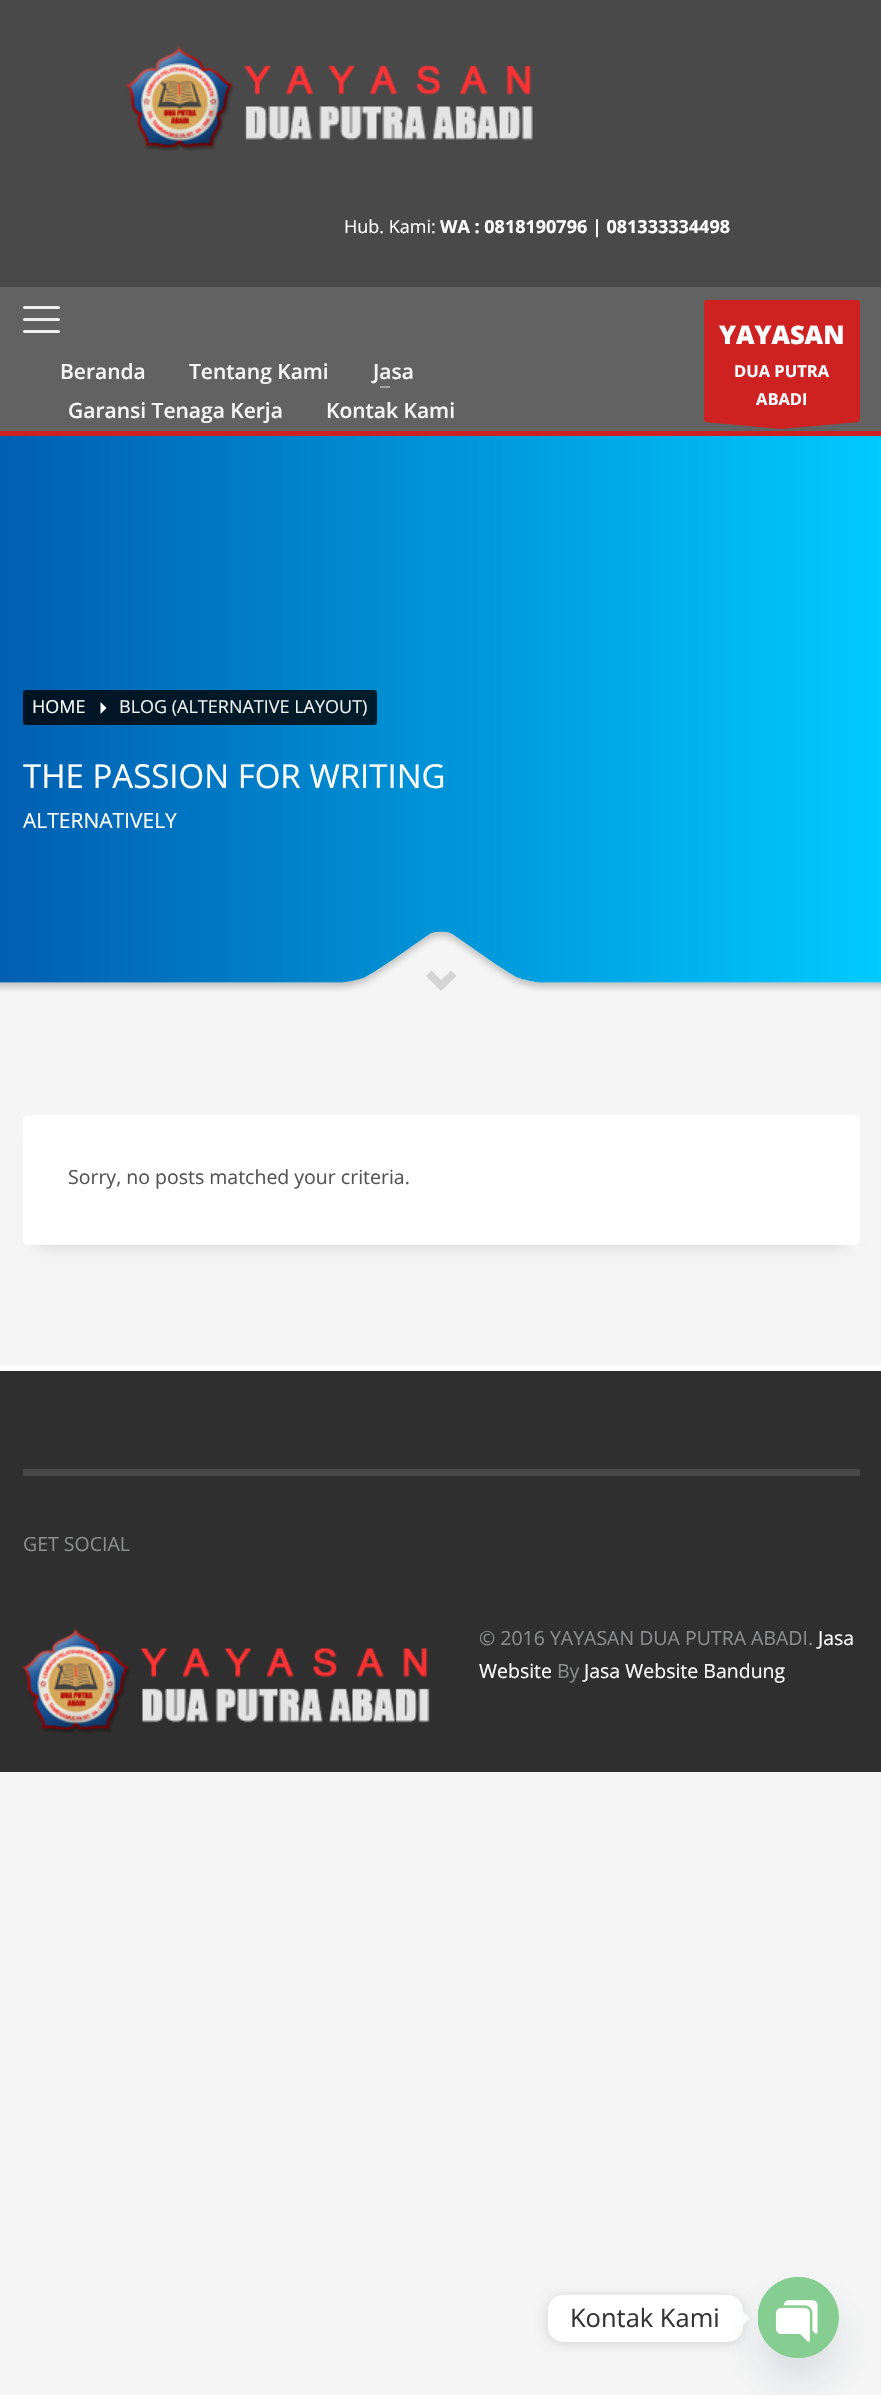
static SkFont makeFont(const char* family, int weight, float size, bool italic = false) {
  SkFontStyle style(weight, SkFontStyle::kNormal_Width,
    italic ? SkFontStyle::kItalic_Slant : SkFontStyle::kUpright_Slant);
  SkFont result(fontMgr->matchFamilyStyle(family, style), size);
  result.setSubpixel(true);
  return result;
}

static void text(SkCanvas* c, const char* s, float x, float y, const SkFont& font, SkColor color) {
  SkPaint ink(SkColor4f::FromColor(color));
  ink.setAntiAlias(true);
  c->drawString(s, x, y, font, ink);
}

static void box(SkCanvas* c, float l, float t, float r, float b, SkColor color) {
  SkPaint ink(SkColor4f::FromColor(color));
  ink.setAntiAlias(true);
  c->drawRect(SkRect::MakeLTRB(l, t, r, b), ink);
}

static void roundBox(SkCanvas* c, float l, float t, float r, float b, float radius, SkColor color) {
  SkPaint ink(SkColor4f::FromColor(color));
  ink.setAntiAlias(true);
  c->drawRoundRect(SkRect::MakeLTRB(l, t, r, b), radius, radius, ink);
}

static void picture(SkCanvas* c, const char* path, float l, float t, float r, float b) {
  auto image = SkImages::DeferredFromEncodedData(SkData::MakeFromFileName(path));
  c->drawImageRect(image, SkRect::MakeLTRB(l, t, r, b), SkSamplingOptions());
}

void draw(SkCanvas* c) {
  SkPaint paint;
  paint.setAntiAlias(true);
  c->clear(0xfff5f5f5);
  box(c, 0, 0, 881, 287, 0xff494949);
  picture(c, "img_01.png", 126, 46, 533, 151);
  SkFont face1 = makeFont("Open Sans", 400, 18);
  text(c, "Hub. Kami:", 344, 233, face1, 0xffffffff);
  SkFont face2 = makeFont("Open Sans", 700, 18);
  text(c, "WA : 0818190796 | 081333334498", 440, 233, face2, 0xffffffff);
  box(c, 0, 287, 881, 431, 0xff626262);
  box(c, 0, 431, 881, 436, 0xffcd2122);
  roundBox(c, 23, 330, 60, 333, 1.5f, 0xffefefef);
  roundBox(c, 23, 318, 60, 321, 1.5f, 0xffefefef);
  roundBox(c, 23, 306, 60, 309, 1.5f, 0xffefefef);
  SkFont face3 = makeFont("Open Sans", 600, 21);
  text(c, "Beranda", 60, 379, face3, 0xfff5f5f5);
  text(c, "Tentang Kami", 189, 379, face3, 0xfff5f5f5);
  text(c, "Jasa", 373, 379, face3, 0xfff5f5f5);
  box(c, 380, 386, 390, 388, 0xffa1a1a1);
  text(c, "Garansi Tenaga Kerja", 68, 418, face3, 0xfff5f5f5);
  text(c, "Kontak Kami", 326, 418, face3, 0xfff5f5f5);
  roundBox(c, 704, 300, 860, 422, 3, 0xffcd2122);
  SkFont face4 = makeFont("Open Sans", 800, 25.5f);
  text(c, "YAYASAN", 719, 344, face4, 0xffffffff);
  SkFont face5 = makeFont("Open Sans", 700, 16.5f);
  text(c, "DUA PUTRA", 734, 377, face5, 0xffffffff);
  text(c, "ABADI", 756, 405, face5, 0xffffffff);
  paint.setColor(0xffcd2122);
  c->drawPath(SkPathBuilder(SkPathFillType::kEvenOdd).moveTo(859, 422).lineTo(781, 429).lineTo(704, 422).close().detach(), paint);
  {
    const SkColor colors[] = {0xff005eb0, 0xff00caff};
    const float stops[] = {0, 1};
    const SkPoint ends[] = {{0, 715}, {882, 715}};
    paint.setShader(SkGradientShader::MakeLinear(ends, colors, stops, 2, SkTileMode::kClamp));
    paint.setAlpha(255);
  }
  c->drawRect(SkRect::MakeLTRB(0, 436, 881, 983), paint);
  roundBox(c, 23, 690, 377, 725, 3, 0xcc000000);
  text(c, "HOME", 32, 713, face1, 0xffffffff);
  paint.setShader(nullptr);
  paint.setColor(0xffffffff);
  c->drawPath(SkPathBuilder().moveTo(100.5f, 714).lineTo(100.5f, 702).lineTo(106.5f, 708).close().detach(), paint);
  text(c, "BLOG (ALTERNATIVE LAYOUT)", 119, 713, face1, 0xffeeeeee);
  SkFont face6 = makeFont("Open Sans", 400, 33);
  text(c, "THE PASSION FOR WRITING", 23, 788, face6, 0xffffffff);
  SkFont face7 = makeFont("Open Sans", 400, 21);
  text(c, "ALTERNATIVELY", 23, 828, face7, 0xffffffff);
  picture(c, "img_02.png", 0, 931, 881, 995);
  paint.setColor(0xffd5d5d5);
  c->drawPath(SkPathBuilder().moveTo(456.5f, 976).lineTo(441, 991).lineTo(426, 976).lineTo(431.5f, 970.5f).lineTo(441, 980).lineTo(451, 970.5f).close().detach(), paint);
  paint.setColor(0x26000000);
  paint.setMaskFilter(SkMaskFilter::MakeBlur(kNormal_SkBlurStyle, 7.5f));
  c->drawRect(SkRect::MakeLTRB(38, 1145, 845, 1245), paint);
  paint.setMaskFilter(nullptr);
  roundBox(c, 23, 1115, 860, 1245, 5, 0xffffffff);
  SkFont face8 = makeFont("Open Sans", 400, 19.5f);
  text(c, "Sorry, no posts matched your criteria.", 68, 1184, face8, 0xff535353);
  box(c, 0, 1371, 881, 1772, 0xff2f2f2f);
  box(c, 0, 1365, 881, 1371, 0xffffffff);
  box(c, 23, 1469, 860, 1476, 0xff484848);
  text(c, "GET SOCIAL", 23, 1551, face8, 0xff8b8c8d);
  picture(c, "img_03.png", 22, 1628, 430, 1733);
  text(c, "© 2016 YAYASAN DUA PUTRA ABADI.", 479, 1645, face8, 0xff8b8c8d);
  text(c, "Jasa", 818, 1645, face8, 0xffffffff);
  text(c, "Website", 479, 1678, face8, 0xffffffff);
  text(c, "By", 557, 1678, face8, 0xff8b8c8d);
  text(c, "Jasa Website Bandung", 584, 1678, face8, 0xffffffff);
  paint.setMaskFilter(SkMaskFilter::MakeBlur(kNormal_SkBlurStyle, 6));
  c->drawRoundRect(SkRect::MakeLTRB(548, 2297, 743, 2343), 15, 15, paint);
  paint.setMaskFilter(nullptr);
  roundBox(c, 548, 2295, 743, 2342, 15, 0xffffffff);
  SkFont face9 = makeFont("Open Sans", 400, 25.5f);
  text(c, "Kontak Kami", 570, 2327, face9, 0xff333333);
  paint.setColor(0xffffffff);
  c->drawPath(SkPathBuilder().moveTo(742.5f, 2326).lineTo(742.5f, 2311).lineTo(750, 2318).close().detach(), paint);
  paint.setColor(0x2949687e);
  paint.setMaskFilter(SkMaskFilter::MakeBlur(kNormal_SkBlurStyle, 18));
  c->drawRoundRect(SkRect::MakeLTRB(758, 2301, 839, 2382), 40.5f, 40.5f, paint);
  paint.setMaskFilter(nullptr);
  paint.setColor(0xff86cd91);
  c->drawCircle(798.5f, 2317.5f, 40.5f, paint);
  picture(c, "img_04.png", 758, 2277, 821, 2358);
}
